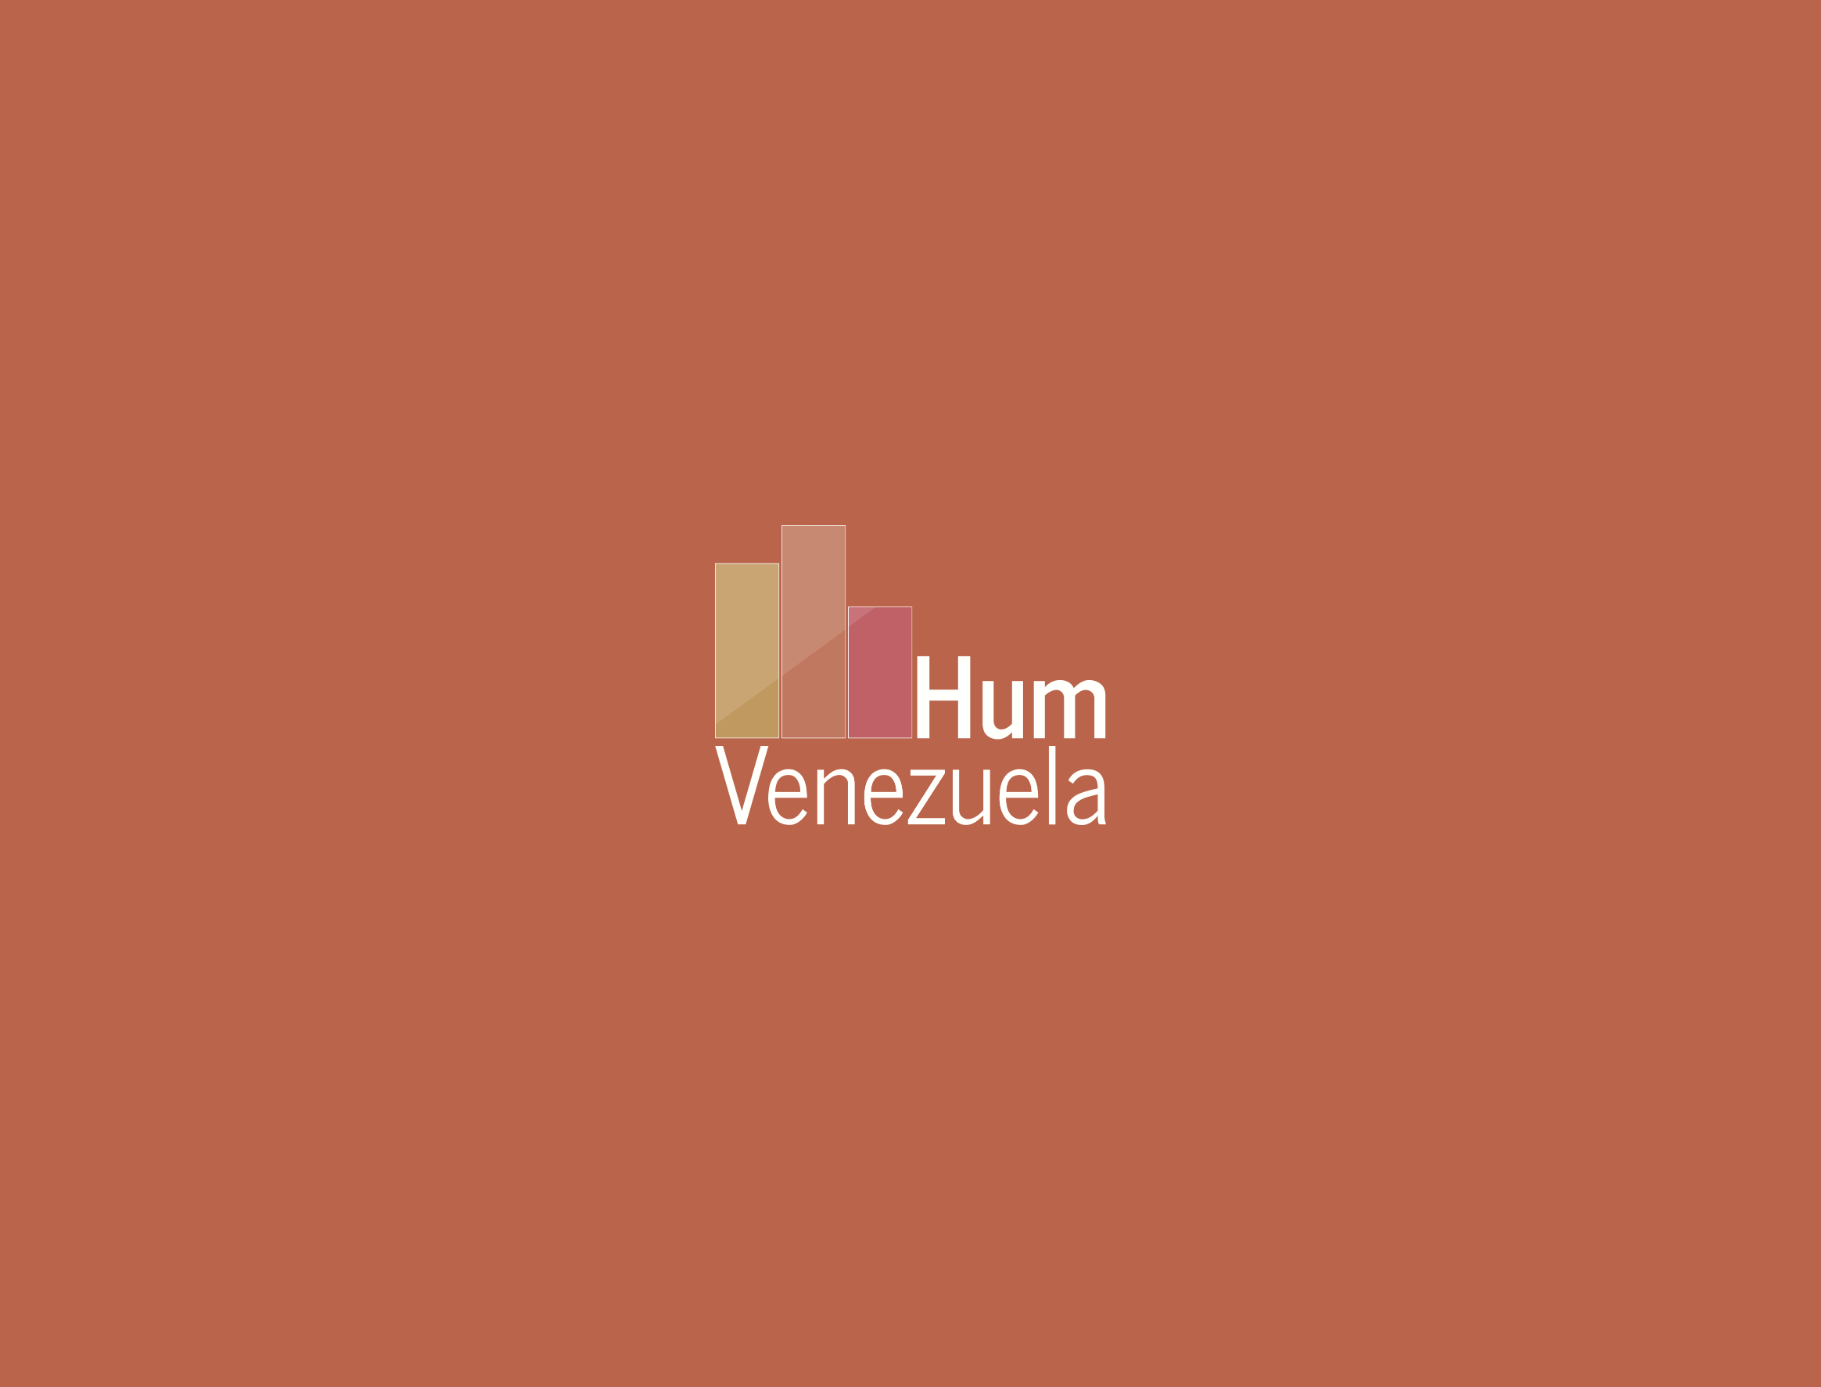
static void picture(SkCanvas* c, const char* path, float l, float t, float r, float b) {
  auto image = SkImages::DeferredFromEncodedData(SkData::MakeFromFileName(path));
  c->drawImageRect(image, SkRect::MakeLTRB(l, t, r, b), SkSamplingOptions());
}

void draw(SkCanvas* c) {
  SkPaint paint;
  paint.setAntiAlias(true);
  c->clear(0xffbb644c);
  picture(c, "img_01.png", 715, 525, 1106, 825);
}
